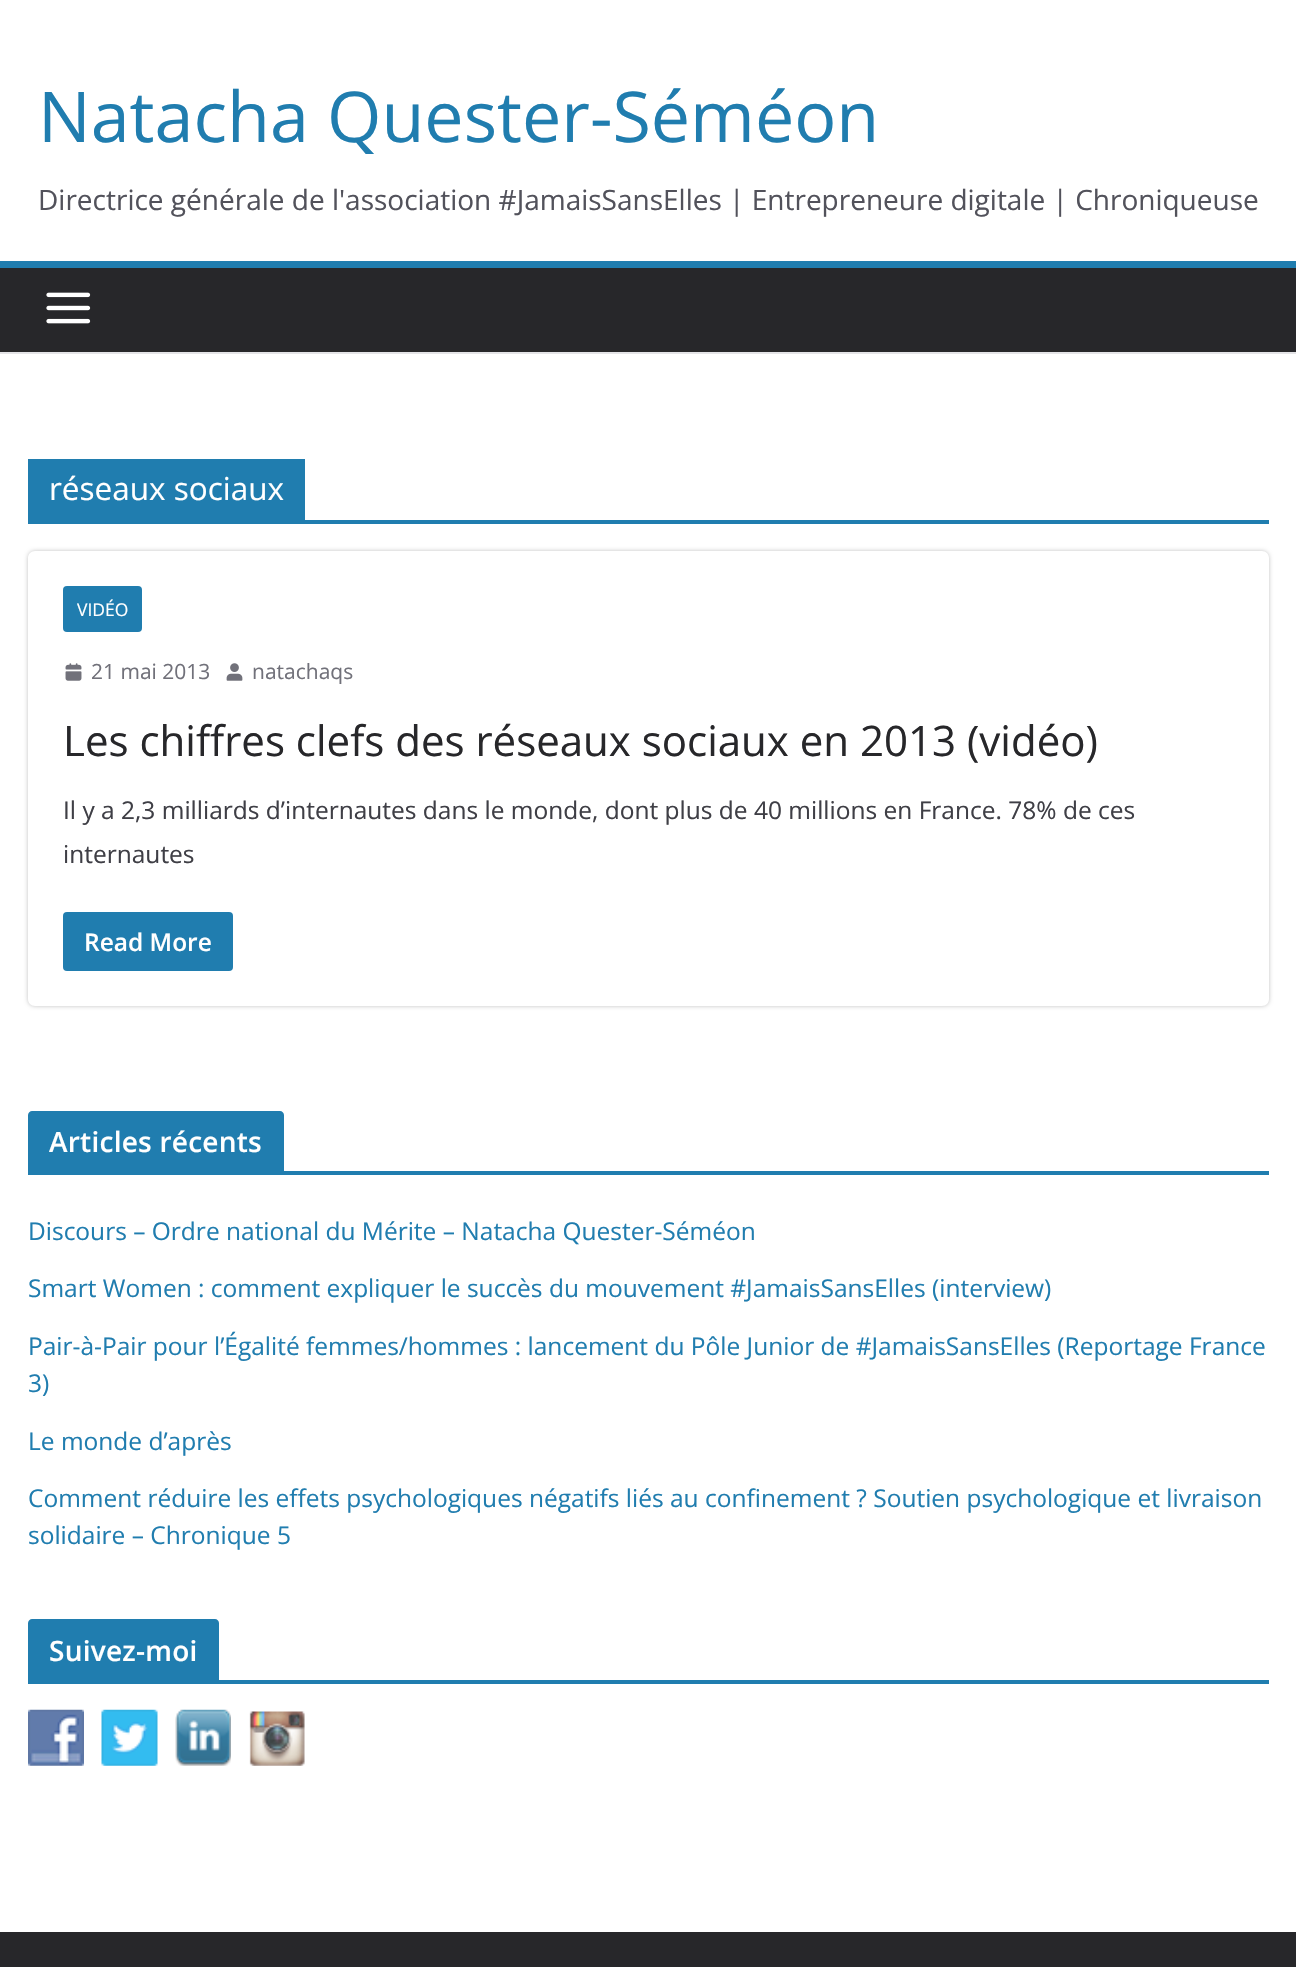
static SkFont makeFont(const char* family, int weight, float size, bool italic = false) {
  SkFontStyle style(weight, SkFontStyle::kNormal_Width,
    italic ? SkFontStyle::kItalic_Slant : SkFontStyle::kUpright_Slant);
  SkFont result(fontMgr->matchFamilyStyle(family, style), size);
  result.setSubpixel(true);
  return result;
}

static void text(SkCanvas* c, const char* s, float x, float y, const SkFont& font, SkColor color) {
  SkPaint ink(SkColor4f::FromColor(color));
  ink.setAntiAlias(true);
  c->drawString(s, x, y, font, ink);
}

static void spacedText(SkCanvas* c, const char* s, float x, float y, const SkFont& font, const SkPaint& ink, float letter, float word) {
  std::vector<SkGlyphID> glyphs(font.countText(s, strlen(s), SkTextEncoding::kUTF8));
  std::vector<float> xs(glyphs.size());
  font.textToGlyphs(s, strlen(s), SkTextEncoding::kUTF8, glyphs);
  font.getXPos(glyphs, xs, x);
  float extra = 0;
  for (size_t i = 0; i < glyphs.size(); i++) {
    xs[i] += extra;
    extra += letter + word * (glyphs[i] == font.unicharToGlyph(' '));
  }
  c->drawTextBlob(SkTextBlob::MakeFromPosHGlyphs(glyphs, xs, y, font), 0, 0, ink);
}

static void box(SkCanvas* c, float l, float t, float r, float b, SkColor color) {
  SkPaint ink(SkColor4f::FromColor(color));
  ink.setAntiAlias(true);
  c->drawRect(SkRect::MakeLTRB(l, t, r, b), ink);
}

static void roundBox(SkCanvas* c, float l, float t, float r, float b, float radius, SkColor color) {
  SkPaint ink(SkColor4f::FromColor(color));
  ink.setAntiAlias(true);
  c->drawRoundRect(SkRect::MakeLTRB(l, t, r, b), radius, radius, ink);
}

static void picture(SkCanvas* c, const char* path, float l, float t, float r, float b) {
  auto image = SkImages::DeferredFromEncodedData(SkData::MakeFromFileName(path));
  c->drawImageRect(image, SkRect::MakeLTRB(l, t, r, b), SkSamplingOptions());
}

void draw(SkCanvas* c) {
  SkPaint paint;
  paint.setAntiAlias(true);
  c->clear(0xffe4e4e7);
  box(c, 0, 0, 1296, 261, 0xffffffff);
  SkFont face1 = makeFont("Open Sans", 400, 70);
  text(c, "Natacha Quester-Séméon", 38, 142, face1, 0xff207daf);
  SkFont face2 = makeFont("Open Sans", 400, 28);
  text(c, "Directrice générale de l'association #JamaisSansElles | Entrepreneure digitale | Chroniqueuse", 38, 210, face2, 0xff52525b);
  box(c, 0, 268, 1296, 352, 0xff27272a);
  box(c, 0, 261, 1296, 268, 0xff207daf);
  picture(c, "img_01.png", 46, 292, 91, 324);
  box(c, 0, 354, 1296, 1932, 0xffffffff);
  box(c, 28, 520, 1269, 524, 0xff207daf);
  box(c, 28, 459, 305, 520, 0xff207daf);
  SkFont face3 = makeFont("Open Sans", 400, 31.5f);
  text(c, "réseaux sociaux", 49, 500, face3, 0xffffffff);
  c->save();
  c->clipPath(SkPathBuilder(SkPathFillType::kEvenOdd).moveTo(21, 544).lineTo(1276, 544).lineTo(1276, 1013).lineTo(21, 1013).close().moveTo(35, 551).lineTo(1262, 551).cubicTo(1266, 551, 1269, 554, 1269, 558).lineTo(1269, 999).cubicTo(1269, 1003, 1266, 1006, 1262, 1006).lineTo(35, 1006).cubicTo(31, 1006, 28, 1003, 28, 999).lineTo(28, 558).cubicTo(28, 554, 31, 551, 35, 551).close().detach(), true);
  paint.setColor(0x3d000000);
  paint.setMaskFilter(SkMaskFilter::MakeBlur(kNormal_SkBlurStyle, 2));
  c->drawRoundRect(SkRect::MakeLTRB(28, 551, 1269, 1006), 7, 7, paint);
  paint.setMaskFilter(nullptr);
  c->restore();
  roundBox(c, 63, 586, 142, 632, 4, 0xff207daf);
  SkFont face4 = makeFont("Open Sans", 400, 17.5f);
  text(c, "VIDÉO", 77, 616, face4, 0xffffffff);
  picture(c, "img_02.png", 65, 663, 82, 681);
  SkFont face5 = makeFont("Open Sans", 400, 21);
  text(c, "21 mai 2013", 91, 679, face5, 0xff71717a);
  picture(c, "img_03.png", 226, 663, 243, 681);
  text(c, "natachaqs", 252, 679, face5, 0xff71717a);
  SkFont face6 = makeFont("Open Sans", 400, 42);
  text(c, "Les chiffres clefs des réseaux sociaux en 2013 (vidéo)", 63, 756, face6, 0xff27272a);
  SkFont face7 = makeFont("Open Sans", 400, 24.5f);
  text(c, "Il y a 2,3 milliards d’internautes dans le monde, dont plus de 40 millions en France. 78% de ces", 63, 819, face7, 0xff3f3f46);
  text(c, "internautes", 63, 863, face7, 0xff3f3f46);
  roundBox(c, 63, 912, 233, 971, 4, 0xff207daf);
  SkFont face8 = makeFont("Open Sans", 600, 24.5f);
  text(c, "Read More", 84, 951, face8, 0xffffffff);
  box(c, 28, 1171, 1269, 1175, 0xff207daf);
  paint.setColor(0xff207daf);
  c->drawPath(SkPathBuilder().moveTo(32, 1111).lineTo(280, 1111).cubicTo(282, 1111, 284, 1113, 284, 1115).lineTo(284, 1171).lineTo(28, 1171).lineTo(28, 1115).cubicTo(28, 1113, 30, 1111, 32, 1111).close().detach(), paint);
  SkFont face9 = makeFont("Open Sans", 600, 28);
  paint.setColor(0xffffffff);
  spacedText(c, "Articles récents", 49, 1152, face9, paint, 0.25f, 0);
  text(c, "Discours – Ordre national du Mérite – Natacha Quester-Séméon", 28, 1240, face7, 0xff207daf);
  text(c, "Smart Women : comment expliquer le succès du mouvement #JamaisSansElles (interview)", 28, 1297, face7, 0xff207daf);
  text(c, "Pair-à-Pair pour l’Égalité femmes/hommes : lancement du Pôle Junior de #JamaisSansElles (Reportage France", 28, 1355, face7, 0xff207daf);
  text(c, "3)", 28, 1392, face7, 0xff207daf);
  text(c, "Le monde d’après", 28, 1450, face7, 0xff207daf);
  text(c, "Comment réduire les effets psychologiques négatifs liés au confinement ? Soutien psychologique et livraison", 28, 1507, face7, 0xff207daf);
  text(c, "solidaire – Chronique 5", 28, 1544, face7, 0xff207daf);
  box(c, 28, 1680, 1269, 1684, 0xff207daf);
  paint.setColor(0xff207daf);
  c->drawPath(SkPathBuilder().moveTo(32, 1619).lineTo(215, 1619).cubicTo(217, 1619, 219, 1621, 219, 1623).lineTo(219, 1680).lineTo(28, 1680).lineTo(28, 1623).cubicTo(28, 1621, 30, 1619, 32, 1619).close().detach(), paint);
  paint.setColor(0xffffffff);
  spacedText(c, "Suivez-moi", 49, 1661, face9, paint, 0.25f, 0);
  picture(c, "img_04.png", 28, 1709, 84, 1766);
  picture(c, "img_05.png", 101, 1709, 158, 1766);
  picture(c, "img_06.png", 175, 1709, 231, 1766);
  picture(c, "img_07.png", 249, 1711, 305, 1766);
  box(c, 0, 1932, 1296, 1967, 0xff27272a);
}
